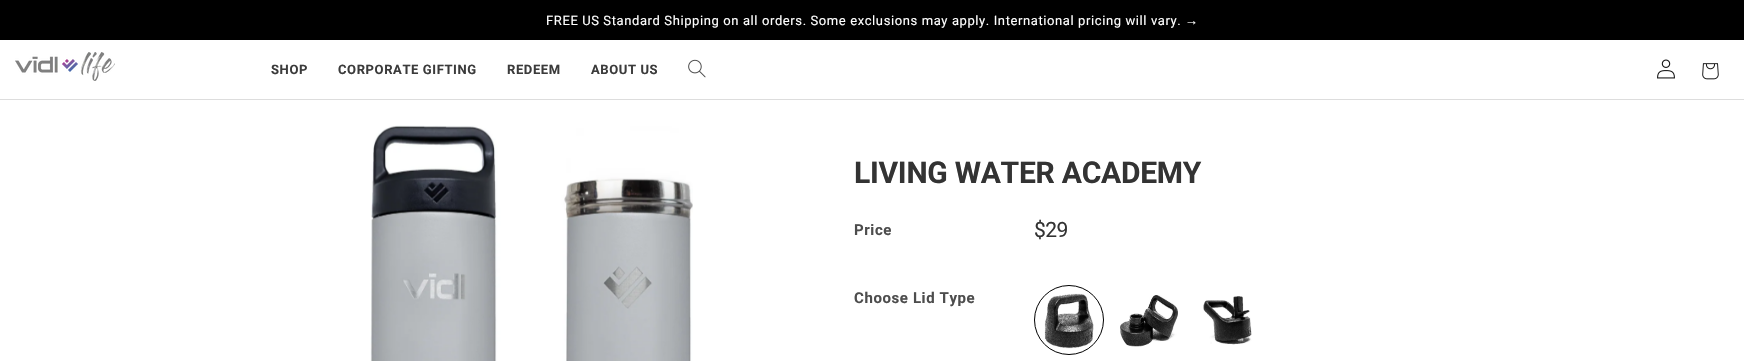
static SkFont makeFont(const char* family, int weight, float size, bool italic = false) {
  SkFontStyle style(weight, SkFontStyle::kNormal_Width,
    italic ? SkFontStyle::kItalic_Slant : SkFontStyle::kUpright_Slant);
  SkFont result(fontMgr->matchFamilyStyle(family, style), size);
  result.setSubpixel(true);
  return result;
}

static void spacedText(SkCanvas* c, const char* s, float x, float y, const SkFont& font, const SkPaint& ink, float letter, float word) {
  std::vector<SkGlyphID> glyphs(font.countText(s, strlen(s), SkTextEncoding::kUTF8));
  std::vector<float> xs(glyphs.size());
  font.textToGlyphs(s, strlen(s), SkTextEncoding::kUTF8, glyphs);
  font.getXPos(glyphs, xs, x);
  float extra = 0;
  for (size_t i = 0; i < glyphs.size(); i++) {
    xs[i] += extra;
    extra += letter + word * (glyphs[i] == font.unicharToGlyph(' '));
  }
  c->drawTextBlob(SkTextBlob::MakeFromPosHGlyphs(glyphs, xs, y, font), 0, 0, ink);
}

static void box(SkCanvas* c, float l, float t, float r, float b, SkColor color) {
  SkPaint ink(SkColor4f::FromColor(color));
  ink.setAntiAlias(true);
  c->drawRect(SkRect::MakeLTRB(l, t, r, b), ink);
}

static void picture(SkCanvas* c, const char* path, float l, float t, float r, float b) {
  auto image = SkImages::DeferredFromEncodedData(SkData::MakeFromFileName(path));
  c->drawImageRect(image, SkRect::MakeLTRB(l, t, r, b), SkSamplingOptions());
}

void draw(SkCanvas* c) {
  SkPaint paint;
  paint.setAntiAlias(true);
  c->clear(0xffffffff);
  box(c, 0, 0, 1744, 40, 0xff000000);
  SkFont face1 = makeFont("Roboto", 400, 13);
  paint.setColor(0xffffffff);
  spacedText(c, "FREE US Standard Shipping on all orders. Some exclusions may apply. International pricing will vary.", 546, 25, face1, paint, 0.6f, 0);
  SkFont face2 = makeFont("Liberation Sans", 400, 13);
  spacedText(c, "→", 1185, 25, face2, paint, 0.6f, 0);
  box(c, 0, 99, 1744, 100, 0xffdddddd);
  picture(c, "img_01.png", 15, 52, 115, 81);
  SkFont face3 = makeFont("Roboto", 700, 13);
  paint.setColor(0xff3b3b3b);
  spacedText(c, "SHOP", 271, 74, face3, paint, 0.6f, 0);
  spacedText(c, "CORPORATE GIFTING", 338, 74, face3, paint, 0.6f, 0);
  spacedText(c, "REDEEM", 507, 74, face3, paint, 0.6f, 0);
  spacedText(c, "ABOUT US", 591, 74, face3, paint, 0.6f, 0);
  picture(c, "img_02.png", 688, 59, 706, 78);
  picture(c, "img_03.png", 1657, 59, 1675, 79);
  picture(c, "img_04.png", 1702, 63, 1719, 80);
  picture(c, "img_05.png", 370, 125, 693, 361);
  SkFont face4 = makeFont("Roboto", 700, 30);
  paint.setColor(0xff333333);
  spacedText(c, "LIVING WATER ACADEMY", 854, 183, face4, paint, -0.25f, 0);
  SkFont face5 = makeFont("Roboto", 700, 15);
  paint.setColor(0xff4d4d4d);
  spacedText(c, "Price", 854, 235, face5, paint, 0.6f, 0);
  SkFont face6 = makeFont("Roboto", 400, 21);
  paint.setColor(0xff333333);
  spacedText(c, "$29", 1034, 237, face6, paint, -0.5f, 0);
  paint.setColor(0xff4d4d4d);
  spacedText(c, "Choose Lid Type", 854, 303, face5, paint, 0.6f, 0);
  paint.setStyle(SkPaint::kStroke_Style);
  paint.setStrokeWidth(1);
  paint.setColor(0xff000000);
  c->drawCircle(1069, 320, 34.5f, paint);
  picture(c, "img_06.png", 1044, 293, 1094, 349);
  picture(c, "img_07.png", 1120, 295, 1178, 347);
  picture(c, "img_08.png", 1203, 296, 1252, 345);
}
